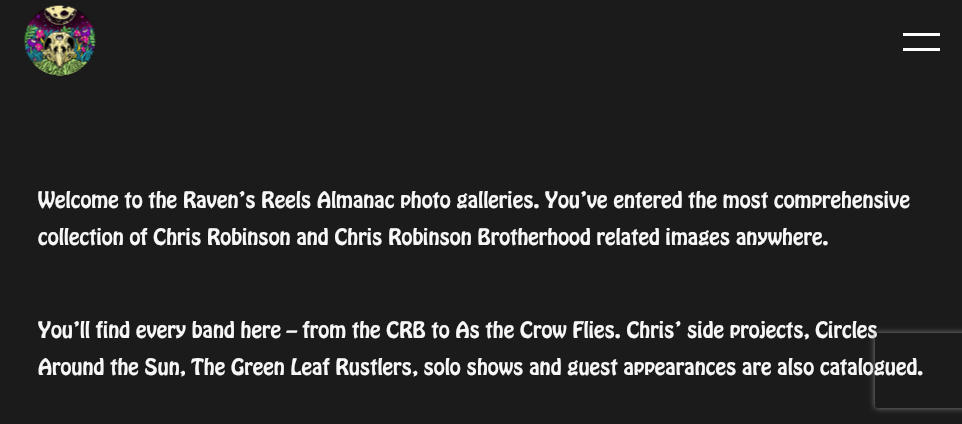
static SkFont makeFont(const char* family, int weight, float size, bool italic = false) {
  SkFontStyle style(weight, SkFontStyle::kNormal_Width,
    italic ? SkFontStyle::kItalic_Slant : SkFontStyle::kUpright_Slant);
  SkFont result(fontMgr->matchFamilyStyle(family, style), size);
  result.setSubpixel(true);
  return result;
}

static void text(SkCanvas* c, const char* s, float x, float y, const SkFont& font, SkColor color) {
  SkPaint ink(SkColor4f::FromColor(color));
  ink.setAntiAlias(true);
  c->drawString(s, x, y, font, ink);
}

static void box(SkCanvas* c, float l, float t, float r, float b, SkColor color) {
  SkPaint ink(SkColor4f::FromColor(color));
  ink.setAntiAlias(true);
  c->drawRect(SkRect::MakeLTRB(l, t, r, b), ink);
}

static void picture(SkCanvas* c, const char* path, float l, float t, float r, float b) {
  auto image = SkImages::DeferredFromEncodedData(SkData::MakeFromFileName(path));
  c->drawImageRect(image, SkRect::MakeLTRB(l, t, r, b), SkSamplingOptions());
}

void draw(SkCanvas* c) {
  SkPaint paint;
  paint.setAntiAlias(true);
  c->clear(0xff1b1b1b);
  picture(c, "img_01.png", 24, 5, 96, 76);
  box(c, 903, 33, 940, 36, 0xffffffff);
  box(c, 903, 48, 940, 51, 0xffffffff);
  SkFont face1 = makeFont("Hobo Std", 500, 20);
  text(c, "Welcome to the Raven’s Reels Almanac photo galleries. You’ve entered the most comprehensive", 38, 208, face1, 0xfff7f7f7);
  text(c, "collection of Chris Robinson and Chris Robinson Brotherhood related images anywhere.", 38, 245, face1, 0xfff7f7f7);
  text(c, "You’ll find every band here – from the CRB to As the Crow Flies. Chris’ side projects, Circles", 38, 338, face1, 0xfff7f7f7);
  text(c, "Around the Sun, The Green Leaf Rustlers, solo shows and guest appearances are also catalogued.", 38, 375, face1, 0xfff7f7f7);
  c->save();
  c->clipPath(SkPathBuilder(SkPathFillType::kEvenOdd).moveTo(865, 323).lineTo(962, 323).lineTo(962, 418).lineTo(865, 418).close().moveTo(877.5f, 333).lineTo(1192.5f, 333).cubicTo(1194, 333, 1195, 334, 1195, 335.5f).lineTo(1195, 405.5f).cubicTo(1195, 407, 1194, 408, 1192.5f, 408).lineTo(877.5f, 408).cubicTo(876, 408, 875, 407, 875, 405.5f).lineTo(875, 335.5f).cubicTo(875, 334, 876, 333, 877.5f, 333).close().detach(), true);
  paint.setColor(0xff808080);
  paint.setMaskFilter(SkMaskFilter::MakeBlur(kNormal_SkBlurStyle, 3));
  c->drawRoundRect(SkRect::MakeLTRB(875, 333, 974, 408), 2.5f, 2.5f, paint);
  paint.setMaskFilter(nullptr);
  c->restore();
}
